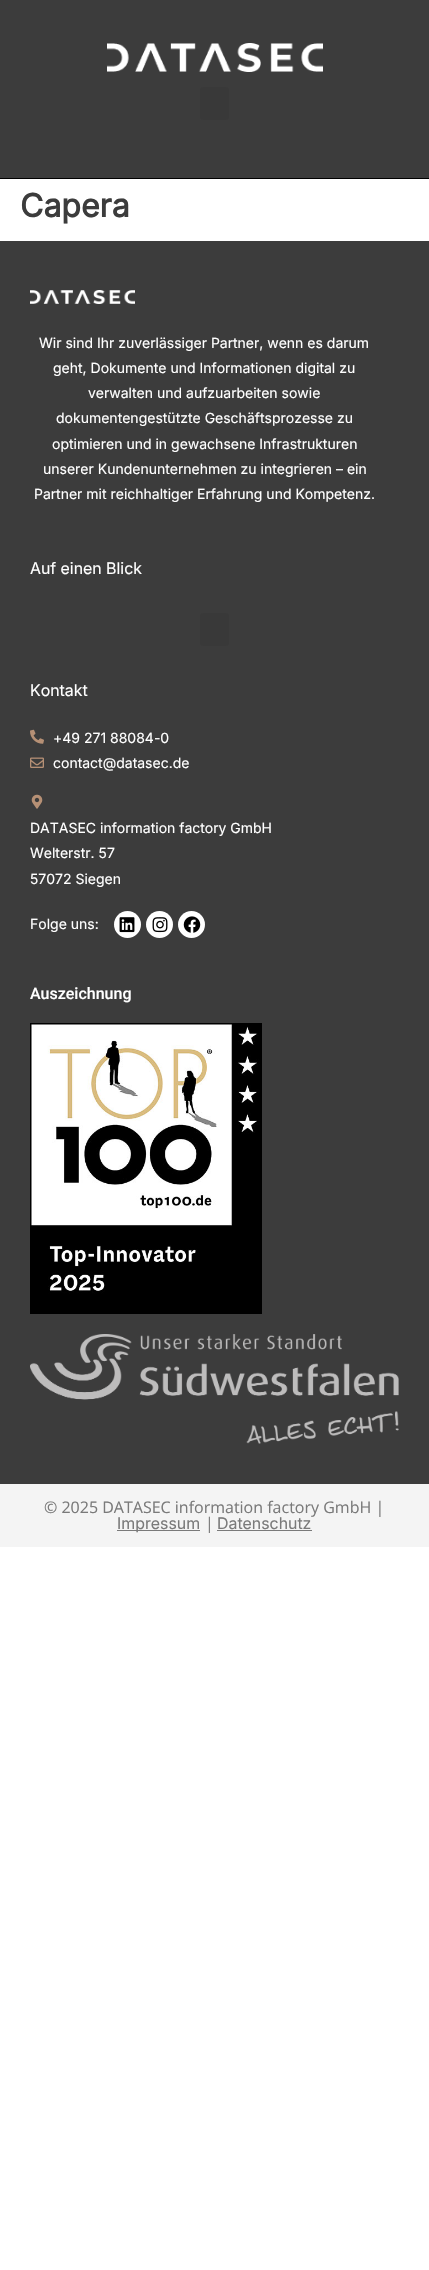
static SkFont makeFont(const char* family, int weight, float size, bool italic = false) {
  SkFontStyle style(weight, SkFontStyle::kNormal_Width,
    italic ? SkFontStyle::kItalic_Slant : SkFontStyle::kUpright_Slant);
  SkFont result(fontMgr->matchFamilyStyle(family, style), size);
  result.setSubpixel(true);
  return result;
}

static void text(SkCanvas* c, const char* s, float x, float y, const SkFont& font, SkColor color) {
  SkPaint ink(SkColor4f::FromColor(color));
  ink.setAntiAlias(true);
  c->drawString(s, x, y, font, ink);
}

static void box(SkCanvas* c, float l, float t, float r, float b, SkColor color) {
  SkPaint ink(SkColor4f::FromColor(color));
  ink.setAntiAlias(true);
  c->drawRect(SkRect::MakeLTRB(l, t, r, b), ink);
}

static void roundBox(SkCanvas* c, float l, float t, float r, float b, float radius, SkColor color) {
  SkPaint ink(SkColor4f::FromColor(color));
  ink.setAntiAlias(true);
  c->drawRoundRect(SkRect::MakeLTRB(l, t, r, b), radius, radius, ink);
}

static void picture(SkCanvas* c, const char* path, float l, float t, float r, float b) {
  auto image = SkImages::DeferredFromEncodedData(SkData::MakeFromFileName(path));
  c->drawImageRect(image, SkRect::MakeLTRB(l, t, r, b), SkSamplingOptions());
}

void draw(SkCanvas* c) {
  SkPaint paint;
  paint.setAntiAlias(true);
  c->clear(0xffffffff);
  box(c, 0, 0, 429, 178, 0xff3c3c3c);
  box(c, 0, 178, 429, 179, 0xff000000);
  picture(c, "img_01.png", 107, 43, 323, 72);
  roundBox(c, 200, 87, 229, 120, 3, 0xff393939);
  SkFont face1 = makeFont("Inter", 700, 32);
  text(c, "Capera", 20, 217, face1, 0xff3c3c3c);
  box(c, 0, 241, 429, 1484, 0xff3c3c3c);
  picture(c, "img_02.png", 30, 290, 135, 304);
  SkFont face2 = makeFont("Inter", 400, 14);
  text(c, "Wir sind Ihr zuverlässiger Partner, wenn es darum", 39, 348, face2, 0xffffffff);
  text(c, "geht, Dokumente und Informationen digital zu", 53, 373, face2, 0xffffffff);
  text(c, "verwalten und aufzuarbeiten sowie", 88, 398, face2, 0xffffffff);
  text(c, "dokumentengestützte Geschäftsprozesse zu", 56, 423, face2, 0xffffffff);
  text(c, "optimieren und in gewachsene Infrastrukturen", 52, 449, face2, 0xffffffff);
  text(c, "unserer Kundenunternehmen zu integrieren – ein", 43, 474, face2, 0xffffffff);
  text(c, "Partner mit reichhaltiger Erfahrung und Kompetenz.", 34, 499, face2, 0xffffffff);
  SkFont face3 = makeFont("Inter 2", 400, 16);
  text(c, "Auf einen Blick", 30, 574, face3, 0xffffffff);
  roundBox(c, 200, 613, 229, 646, 3, 0xff393939);
  text(c, "Kontakt", 30, 696, face3, 0xffffffff);
  picture(c, "img_03.png", 30, 729, 44, 744);
  text(c, "+49 271 88084-0", 53, 743, face2, 0xffffffff);
  picture(c, "img_04.png", 30, 757, 44, 768);
  text(c, "contact@datasec.de", 53, 768, face2, 0xffffffff);
  picture(c, "img_05.png", 31, 794, 43, 809);
  text(c, "DATASEC information factory GmbH", 30, 833, face2, 0xffffffff);
  text(c, "Welterstr. 57", 30, 858, face2, 0xffffffff);
  text(c, "57072 Siegen", 30, 884, face2, 0xffffffff);
  text(c, "Folge uns:", 30, 929, face2, 0xffffffff);
  paint.setColor(0xffffffff);
  c->drawCircle(127.5f, 924.5f, 13.5f, paint);
  picture(c, "img_06.png", 119, 917, 135, 933);
  c->drawCircle(159.5f, 924.5f, 13.5f, paint);
  picture(c, "img_07.png", 152, 917, 168, 933);
  c->drawCircle(191.5f, 924.5f, 13.5f, paint);
  picture(c, "img_08.png", 183, 916, 201, 933);
  SkFont face4 = makeFont("Roboto", 500, 16);
  text(c, "Auszeichnung", 30, 999, face4, 0xffffffff);
  picture(c, "img_09.png", 30, 1023, 262, 1314);
  picture(c, "img_10.png", 30, 1334, 399, 1444);
  box(c, 0, 1484, 429, 1547, 0xfff4f4f4);
  SkFont face5 = makeFont("Open Sans", 400, 16);
  text(c, "© 2025 DATASEC information factory GmbH |", 44, 1513, face5, 0xff7a7a7a);
  box(c, 117, 1530, 200, 1531, 0xff7a7a7a);
  text(c, "Impressum", 117, 1529, face3, 0xff7a7a7a);
  text(c, "|", 205, 1529, face5, 0xff7a7a7a);
  text(c, "Datenschutz", 217, 1529, face3, 0xff7a7a7a);
  box(c, 217, 1530, 312, 1531, 0xff7a7a7a);
}
